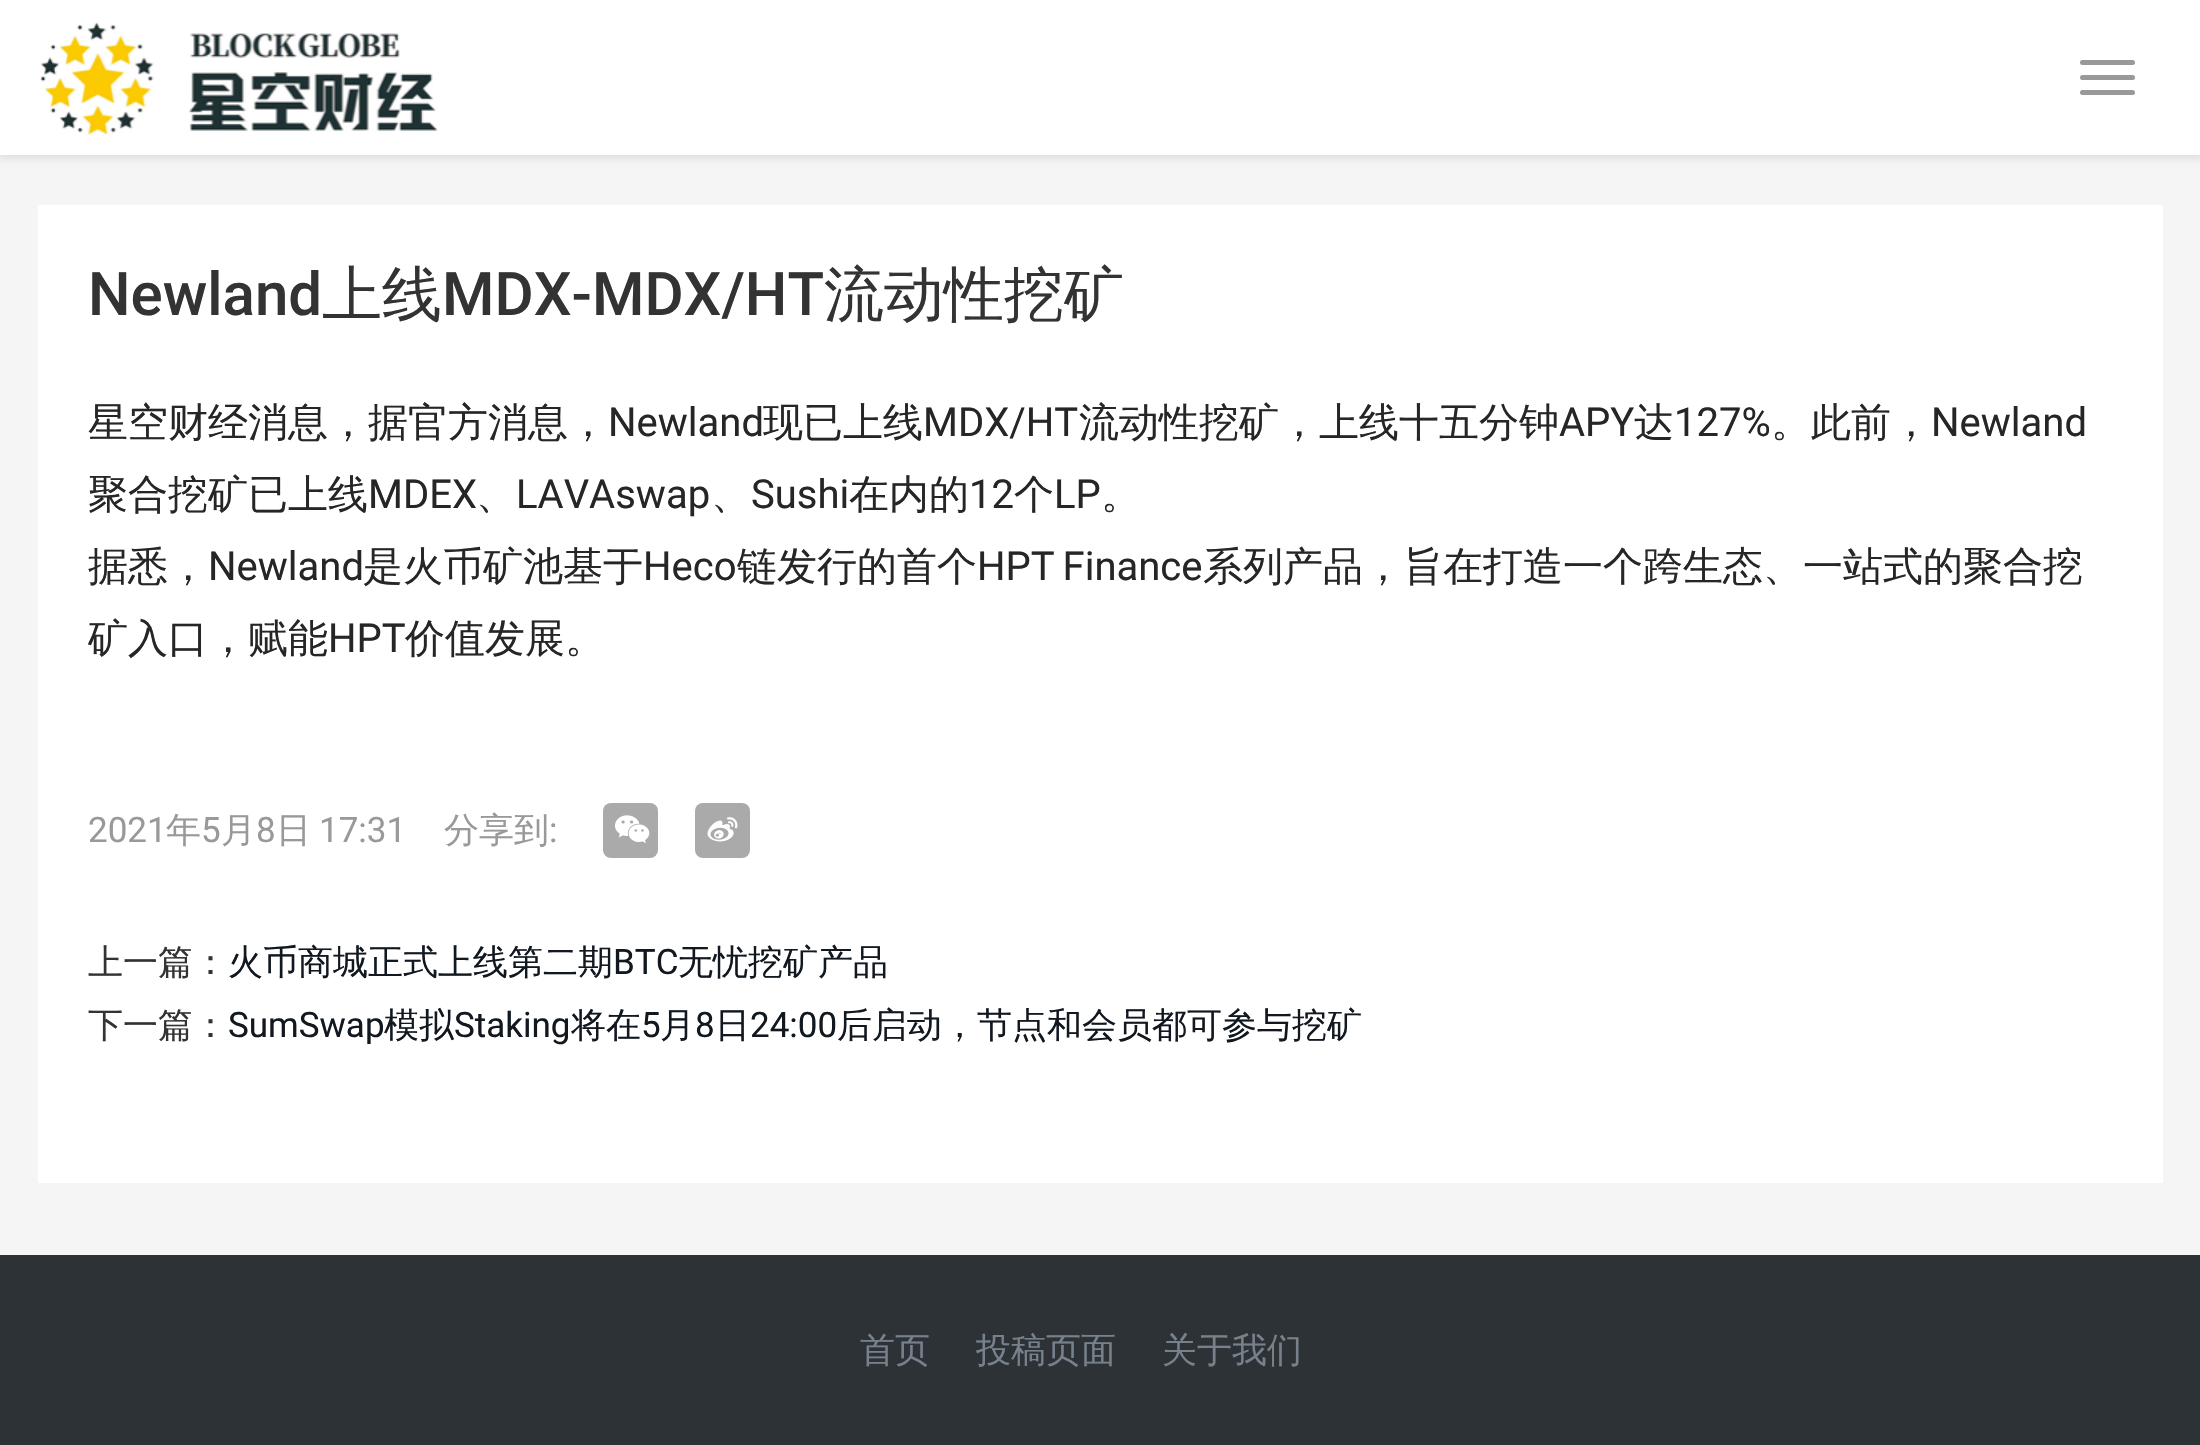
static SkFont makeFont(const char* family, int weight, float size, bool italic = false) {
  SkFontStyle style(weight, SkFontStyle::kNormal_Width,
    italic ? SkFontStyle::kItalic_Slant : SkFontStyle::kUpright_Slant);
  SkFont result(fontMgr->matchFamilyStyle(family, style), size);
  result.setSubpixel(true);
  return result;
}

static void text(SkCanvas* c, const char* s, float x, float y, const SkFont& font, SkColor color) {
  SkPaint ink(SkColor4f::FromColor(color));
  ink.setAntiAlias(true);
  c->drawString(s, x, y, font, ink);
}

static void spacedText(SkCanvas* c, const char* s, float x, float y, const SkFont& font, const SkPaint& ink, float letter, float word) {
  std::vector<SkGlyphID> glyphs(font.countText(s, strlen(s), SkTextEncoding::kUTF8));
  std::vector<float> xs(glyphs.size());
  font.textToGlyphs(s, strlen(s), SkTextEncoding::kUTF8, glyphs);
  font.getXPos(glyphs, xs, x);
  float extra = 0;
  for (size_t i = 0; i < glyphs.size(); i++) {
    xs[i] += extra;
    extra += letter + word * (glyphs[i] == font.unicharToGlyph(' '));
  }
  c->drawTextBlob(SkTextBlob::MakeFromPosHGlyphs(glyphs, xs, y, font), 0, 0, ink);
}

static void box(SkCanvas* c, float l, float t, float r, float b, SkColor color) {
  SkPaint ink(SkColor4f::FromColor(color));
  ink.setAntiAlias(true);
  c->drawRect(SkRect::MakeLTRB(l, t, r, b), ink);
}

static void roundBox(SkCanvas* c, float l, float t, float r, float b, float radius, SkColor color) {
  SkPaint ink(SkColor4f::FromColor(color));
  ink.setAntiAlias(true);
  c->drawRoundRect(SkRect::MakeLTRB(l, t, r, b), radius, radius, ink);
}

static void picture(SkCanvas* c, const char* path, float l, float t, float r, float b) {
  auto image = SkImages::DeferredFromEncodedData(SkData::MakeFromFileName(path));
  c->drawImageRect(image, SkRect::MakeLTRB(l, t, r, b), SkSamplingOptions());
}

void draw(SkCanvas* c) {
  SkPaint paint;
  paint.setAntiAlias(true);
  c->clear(0xfff5f5f5);
  paint.setColor(0x1a000000);
  paint.setMaskFilter(SkMaskFilter::MakeBlur(kNormal_SkBlurStyle, 4));
  c->drawRect(SkRect::MakeLTRB(-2, -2, 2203, 158), paint);
  paint.setMaskFilter(nullptr);
  box(c, 0, 0, 2200, 155, 0xffffffff);
  picture(c, "img_01.png", 40, 22, 438, 136);
  roundBox(c, 2080, 60, 2135, 65, 2.5f, 0xff999999);
  roundBox(c, 2080, 75, 2135, 80, 2.5f, 0xff999999);
  roundBox(c, 2080, 90, 2135, 95, 2.5f, 0xff999999);
  box(c, 38, 205, 2163, 1183, 0xffffffff);
  SkFont face1 = makeFont("Roboto", 500, 60);
  text(c, "Newland", 88, 315, face1, 0xff333333);
  SkFont face2 = makeFont("WenQuanYi Zen Hei", 500, 60);
  text(c, "上线", 322, 315, face2, 0xff333333);
  text(c, "MDX-MDX/HT", 442, 315, face1, 0xff333333);
  text(c, "流动性挖矿", 824, 315, face2, 0xff333333);
  SkFont face3 = makeFont("WenQuanYi Zen Hei", 500, 40);
  text(c, "星空财经消息，据官方消息，", 88, 436, face3, 0xff262626);
  SkFont face4 = makeFont("Roboto", 400, 40);
  text(c, "Newland", 608, 436, face4, 0xff262626);
  text(c, "现已上线", 763, 436, face3, 0xff262626);
  text(c, "MDX/HT", 923, 436, face4, 0xff262626);
  text(c, "流动性挖矿，上线十五分钟", 1079, 436, face3, 0xff262626);
  text(c, "APY", 1559, 436, face4, 0xff262626);
  text(c, "达", 1634, 436, face3, 0xff262626);
  text(c, "127%", 1674, 436, face4, 0xff262626);
  text(c, "。此前，", 1771, 436, face3, 0xff262626);
  text(c, "Newland", 1931, 436, face4, 0xff262626);
  text(c, "聚合挖矿已上线", 88, 508, face3, 0xff262626);
  text(c, "MDEX", 368, 508, face4, 0xff262626);
  text(c, "、", 476, 508, face3, 0xff262626);
  text(c, "LAVAswap", 516, 508, face4, 0xff262626);
  text(c, "、", 711, 508, face3, 0xff262626);
  text(c, "Sushi", 751, 508, face4, 0xff262626);
  text(c, "在内的", 849, 508, face3, 0xff262626);
  text(c, "12", 969, 508, face4, 0xff262626);
  text(c, "个", 1014, 508, face3, 0xff262626);
  text(c, "LP", 1054, 508, face4, 0xff262626);
  text(c, "。", 1101, 508, face3, 0xff262626);
  text(c, "据悉，", 88, 580, face3, 0xff262626);
  text(c, "Newland", 208, 580, face4, 0xff262626);
  text(c, "是火币矿池基于", 363, 580, face3, 0xff262626);
  text(c, "Heco", 643, 580, face4, 0xff262626);
  text(c, "链发行的首个", 737, 580, face3, 0xff262626);
  paint.setColor(0xff262626);
  spacedText(c, "HPT Finance", 977, 580, face4, paint, 0, -2);
  text(c, "系列产品，旨在打造一个跨生态、一站式的聚合挖", 1203, 580, face3, 0xff262626);
  text(c, "矿入口，赋能", 88, 652, face3, 0xff262626);
  text(c, "HPT", 328, 652, face4, 0xff262626);
  text(c, "价值发展。", 405, 652, face3, 0xff262626);
  SkFont face5 = makeFont("Roboto", 400, 35);
  text(c, "2021", 88, 842, face5, 0xff999999);
  SkFont face6 = makeFont("WenQuanYi Zen Hei", 500, 35);
  text(c, "年", 166, 842, face6, 0xff999999);
  text(c, "5", 201, 842, face5, 0xff999999);
  text(c, "月", 221, 842, face6, 0xff999999);
  text(c, "8", 256, 842, face5, 0xff999999);
  text(c, "日", 276, 842, face6, 0xff999999);
  text(c, "17:31", 319, 842, face5, 0xff999999);
  text(c, "分享到", 444, 842, face6, 0xff999999);
  text(c, ":", 549, 842, face5, 0xff999999);
  roundBox(c, 603, 803, 658, 858, 8, 0xffaaaaaa);
  picture(c, "img_02.png", 615, 815, 650, 843);
  roundBox(c, 695, 803, 750, 858, 8, 0xffaaaaaa);
  picture(c, "img_03.png", 707, 817, 738, 842);
  text(c, "上一篇：", 88, 974, face6, 0xff333333);
  text(c, "火币商城正式上线第二期", 228, 974, face6, 0xff111820);
  text(c, "BTC", 613, 974, face5, 0xff111820);
  text(c, "无忧挖矿产品", 678, 974, face6, 0xff111820);
  text(c, "下一篇：", 88, 1037, face6, 0xff333333);
  text(c, "SumSwap", 228, 1037, face5, 0xff111820);
  text(c, "模拟", 384, 1037, face6, 0xff111820);
  text(c, "Staking", 454, 1037, face5, 0xff111820);
  text(c, "将在", 571, 1037, face6, 0xff111820);
  text(c, "5", 641, 1037, face5, 0xff111820);
  text(c, "月", 660, 1037, face6, 0xff111820);
  text(c, "8", 695, 1037, face5, 0xff111820);
  text(c, "日", 715, 1037, face6, 0xff111820);
  text(c, "24:00", 750, 1037, face5, 0xff111820);
  text(c, "后启动，节点和会员都可参与挖矿", 837, 1037, face6, 0xff111820);
  box(c, 0, 1255, 2200, 1445, 0xff2d3237);
  text(c, "首页", 860, 1362, face6, 0xff76818c);
  text(c, "投稿页面", 976, 1362, face6, 0xff76818c);
  text(c, "关于我们", 1162, 1362, face6, 0xff76818c);
}
